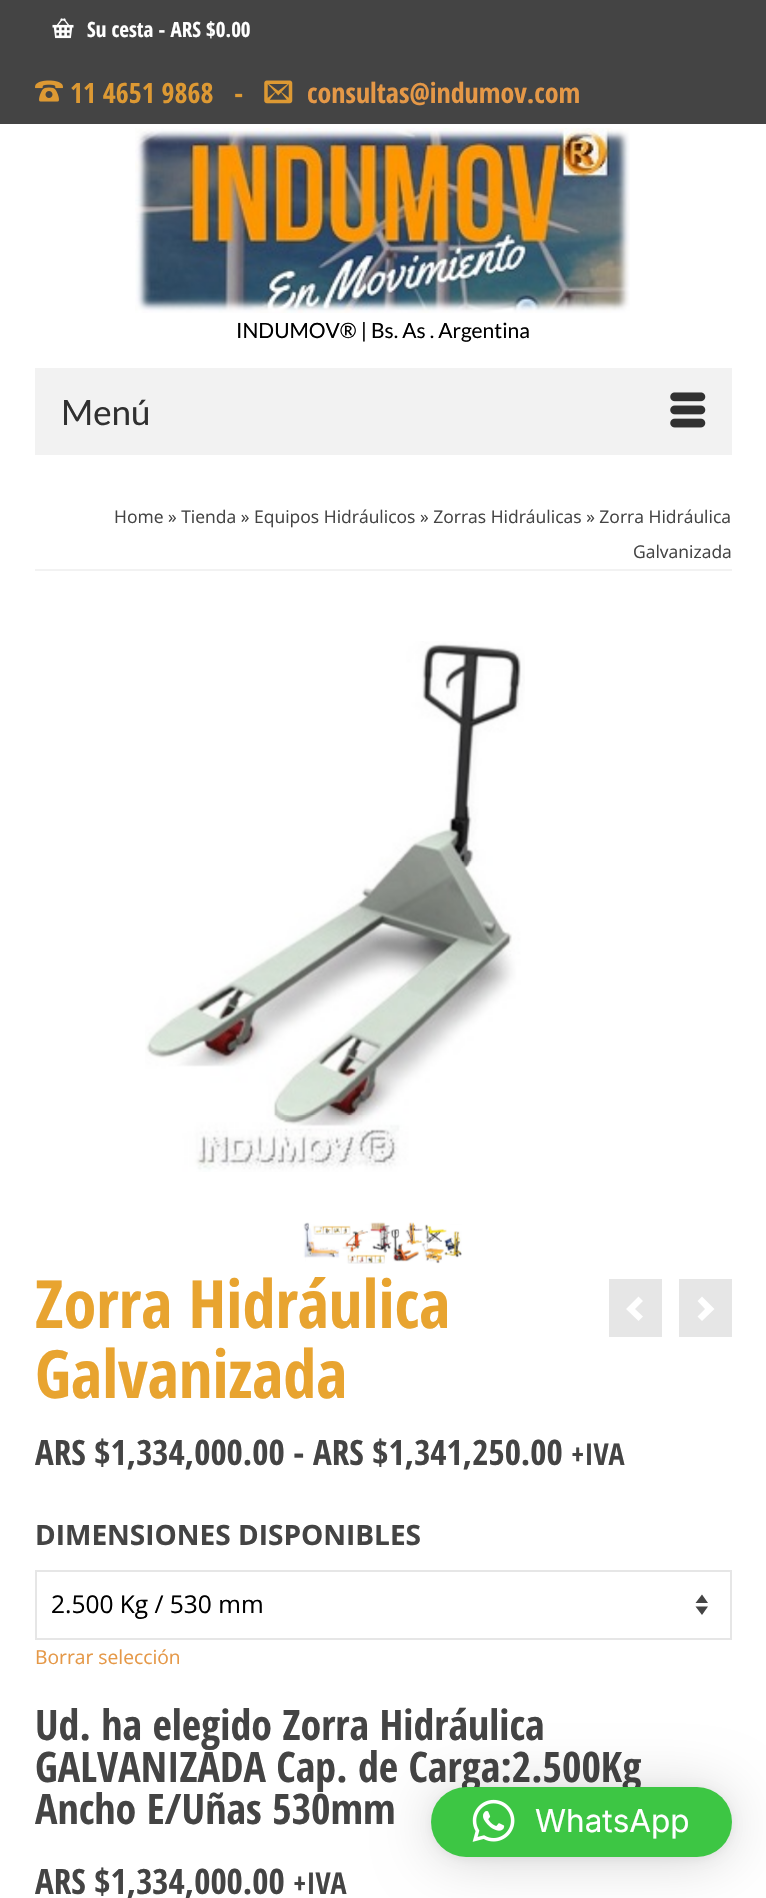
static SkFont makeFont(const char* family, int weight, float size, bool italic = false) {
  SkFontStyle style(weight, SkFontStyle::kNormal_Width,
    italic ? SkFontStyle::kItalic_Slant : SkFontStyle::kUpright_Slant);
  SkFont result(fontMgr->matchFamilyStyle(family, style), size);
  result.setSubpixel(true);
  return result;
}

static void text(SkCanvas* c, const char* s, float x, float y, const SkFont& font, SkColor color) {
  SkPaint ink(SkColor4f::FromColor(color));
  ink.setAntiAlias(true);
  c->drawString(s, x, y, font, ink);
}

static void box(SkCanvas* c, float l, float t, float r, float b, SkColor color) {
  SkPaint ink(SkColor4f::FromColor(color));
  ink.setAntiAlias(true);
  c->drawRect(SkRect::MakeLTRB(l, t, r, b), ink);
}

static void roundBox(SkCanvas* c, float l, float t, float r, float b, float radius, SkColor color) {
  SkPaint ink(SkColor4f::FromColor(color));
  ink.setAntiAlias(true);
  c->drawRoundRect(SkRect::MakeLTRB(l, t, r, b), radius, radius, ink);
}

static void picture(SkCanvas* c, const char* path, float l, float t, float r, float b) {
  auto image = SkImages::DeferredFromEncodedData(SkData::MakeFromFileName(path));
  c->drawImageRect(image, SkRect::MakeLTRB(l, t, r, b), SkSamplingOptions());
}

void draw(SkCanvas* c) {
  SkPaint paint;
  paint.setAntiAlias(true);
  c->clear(0xffffffff);
  box(c, 0, 0, 766, 124, 0xff444444);
  picture(c, "img_01.png", 52, 18, 74, 39);
  SkFont face1 = makeFont("Open Sans Condensed", 700, 21);
  text(c, "Su cesta - ARS $0.00", 87, 37, face1, 0xffffffff);
  picture(c, "img_02.png", 35, 80, 63, 102);
  SkFont face2 = makeFont("Open Sans Condensed", 700, 28);
  text(c, "11 4651 9868   -", 70, 103, face2, 0xffdd9933);
  picture(c, "img_03.png", 264, 80, 293, 104);
  text(c, "consultas@indumov.com", 307, 103, face2, 0xffe59847);
  picture(c, "img_04.png", 135, 128, 630, 313);
  SkFont face3 = makeFont("Lato", 400, 21);
  text(c, "INDUMOV® | Bs. As . Argentina", 236, 338, face3, 0xff000000);
  box(c, 35, 368, 732, 455, 0xfff2f2f2);
  SkFont face4 = makeFont("Lato", 400, 35);
  text(c, "Menú", 61, 425, face4, 0xff303030);
  picture(c, "img_05.png", 670, 392, 706, 428);
  box(c, 35, 569, 732, 571, 0xfff2f2f2);
  SkFont face5 = makeFont("Open Sans", 400, 17.5f);
  text(c, "Home » Tienda » Equipos Hidráulicos » Zorras Hidráulicas » Zorra Hidráulica", 114, 523, face5, 0xff444444);
  text(c, "Galvanizada", 633, 558, face5, 0xff444444);
  picture(c, "img_06.png", 145, 641, 525, 1172);
  picture(c, "img_07.png", 303, 1222, 462, 1264);
  SkFont face6 = makeFont("Open Sans Condensed", 700, 66.5f);
  text(c, "Zorra Hidráulica", 35, 1328, face6, 0xffe8a430);
  text(c, "Galvanizada", 35, 1398, face6, 0xffe8a430);
  box(c, 609, 1279, 662, 1337, 0xffe6e6e6);
  box(c, 679, 1279, 732, 1337, 0xffe6e6e6);
  paint.setColor(0xffffffff);
  c->drawPath(SkPathBuilder().moveTo(638.5f, 1321).lineTo(643, 1316.5f).lineTo(635, 1309).lineTo(643, 1301).lineTo(638.5f, 1296.5f).lineTo(626, 1309).close().detach(), paint);
  c->drawPath(SkPathBuilder().moveTo(702, 1296.5f).lineTo(697.5f, 1301).lineTo(705, 1309).lineTo(697.5f, 1316.5f).lineTo(702, 1321).lineTo(714.5f, 1309).close().detach(), paint);
  SkFont face7 = makeFont("Open Sans Condensed", 700, 35);
  text(c, "ARS $1,334,000.00 - ARS $1,341,250.00", 35, 1465, face7, 0xff444444);
  SkFont face8 = makeFont("Open Sans Condensed", 700, 30);
  text(c, "+IVA", 571, 1465, face8, 0xff444444);
  SkFont face9 = makeFont("Open Sans", 700, 28);
  text(c, "DIMENSIONES DISPONIBLES", 35, 1545, face9, 0xff444444);
  paint.setColor(0xff444444);
  c->drawPath(SkPathBuilder().moveTo(695.5f, 1603).lineTo(702, 1594.5f).lineTo(708, 1603).close().moveTo(708, 1606.5f).lineTo(702, 1615).lineTo(695.5f, 1606.5f).close().detach(), paint);
  paint.setStyle(SkPaint::kStroke_Style);
  paint.setStrokeWidth(2);
  paint.setColor(0xffe6e6e6);
  c->drawRect(SkRect::MakeLTRB(36, 1571, 731, 1639), paint);
  SkFont face10 = makeFont("Open Sans", 400, 24.5f);
  text(c, "2.500 Kg / 530 mm", 51, 1613, face10, 0xff000000);
  SkFont face11 = makeFont("Open Sans", 400, 19.25f);
  text(c, "Borrar selección", 35, 1664, face11, 0xffe59847);
  SkFont face12 = makeFont("Open Sans Condensed", 700, 42);
  text(c, "Ud. ha elegido Zorra Hidráulica", 35, 1740, face12, 0xff444444);
  text(c, "GALVANIZADA Cap. de Carga:2.500Kg", 35, 1782, face12, 0xff444444);
  text(c, "Ancho E/Uñas 530mm", 35, 1824, face12, 0xff444444);
  text(c, "ARS $1,334,000.00", 35, 1894, face7, 0xff444444);
  text(c, "+IVA", 293, 1894, face8, 0xff444444);
  paint.setStyle(SkPaint::kFill_Style);
  paint.setColor(0x29000000);
  paint.setMaskFilter(SkMaskFilter::MakeBlur(kNormal_SkBlurStyle, 28));
  c->drawRoundRect(SkRect::MakeLTRB(431, 1790, 732, 1860), 35, 35, paint);
  paint.setMaskFilter(nullptr);
  paint.setColor(0x0f000000);
  paint.setMaskFilter(SkMaskFilter::MakeBlur(kNormal_SkBlurStyle, 5));
  c->drawRoundRect(SkRect::MakeLTRB(431, 1789, 732, 1859), 35, 35, paint);
  paint.setMaskFilter(nullptr);
  roundBox(c, 431, 1787, 732, 1857, 35, 0xff3dc644);
  picture(c, "img_08.png", 472, 1799, 515, 1842);
  SkFont face13 = makeFont("Inter", 400, 31.5f);
  text(c, "WhatsApp", 535, 1832, face13, 0xffffffff);
}
